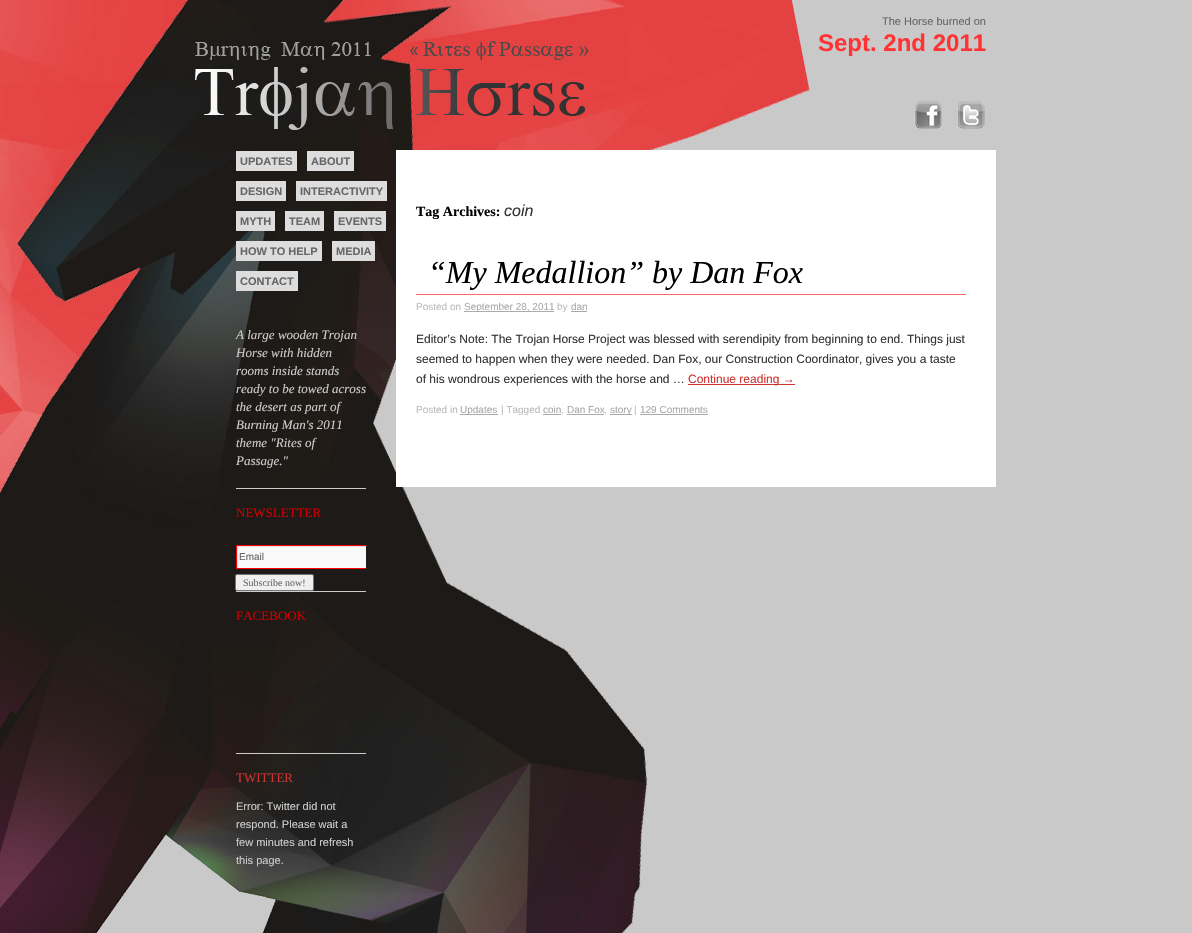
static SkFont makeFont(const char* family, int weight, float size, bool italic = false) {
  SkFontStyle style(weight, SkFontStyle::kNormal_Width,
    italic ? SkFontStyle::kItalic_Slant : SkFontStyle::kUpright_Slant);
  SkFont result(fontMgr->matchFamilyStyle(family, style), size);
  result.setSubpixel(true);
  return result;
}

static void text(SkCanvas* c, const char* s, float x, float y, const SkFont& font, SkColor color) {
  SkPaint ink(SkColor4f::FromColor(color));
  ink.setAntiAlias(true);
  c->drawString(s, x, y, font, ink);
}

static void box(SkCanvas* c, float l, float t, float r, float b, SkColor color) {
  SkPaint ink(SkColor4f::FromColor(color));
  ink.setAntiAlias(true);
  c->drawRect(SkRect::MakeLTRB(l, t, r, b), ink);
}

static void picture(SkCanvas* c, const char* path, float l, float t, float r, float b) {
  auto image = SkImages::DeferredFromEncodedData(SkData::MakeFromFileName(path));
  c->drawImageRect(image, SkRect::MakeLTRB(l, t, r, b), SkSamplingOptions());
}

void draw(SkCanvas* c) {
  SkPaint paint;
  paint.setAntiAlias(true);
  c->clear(0xffc9c9c9);
  picture(c, "img_01.png", 0, 0, 816, 933);
  SkFont face1 = makeFont("Liberation Sans", 400, 11);
  text(c, "The Horse burned on", 882, 25, face1, 0xff666666);
  SkFont face2 = makeFont("Liberation Sans", 700, 24);
  text(c, "Sept. 2nd 2011", 818, 51, face2, 0xffff3333);
  picture(c, "img_02.png", 914, 101, 942, 129);
  picture(c, "img_03.png", 957, 101, 985, 129);
  box(c, 236, 151, 297, 171, 0xffdddddd);
  SkFont face3 = makeFont("Liberation Sans", 700, 11);
  text(c, "UPDATES", 240, 165, face3, 0xff666666);
  box(c, 307, 151, 354, 171, 0xffdddddd);
  text(c, "ABOUT", 311, 165, face3, 0xff666666);
  box(c, 236, 181, 286, 201, 0xffdddddd);
  text(c, "DESIGN", 240, 195, face3, 0xff666666);
  box(c, 296, 181, 387, 201, 0xffdddddd);
  text(c, "INTERACTIVITY", 300, 195, face3, 0xff666666);
  box(c, 236, 211, 275, 231, 0xffdddddd);
  text(c, "MYTH", 240, 225, face3, 0xff666666);
  box(c, 285, 211, 324, 231, 0xffdddddd);
  text(c, "TEAM", 289, 225, face3, 0xff666666);
  box(c, 334, 211, 386, 231, 0xffdddddd);
  text(c, "EVENTS", 338, 225, face3, 0xff666666);
  box(c, 236, 241, 322, 261, 0xffdddddd);
  text(c, "HOW TO HELP", 240, 255, face3, 0xff666666);
  box(c, 332, 241, 375, 261, 0xffdddddd);
  text(c, "MEDIA", 336, 255, face3, 0xff666666);
  box(c, 236, 271, 298, 291, 0xffdddddd);
  text(c, "CONTACT", 240, 285, face3, 0xff666666);
  SkFont face4 = makeFont("Liberation Serif", 400, 13, true);
  text(c, "A large wooden Trojan", 236, 339, face4, 0xffcccccc);
  text(c, "Horse with hidden", 236, 357, face4, 0xffcccccc);
  text(c, "rooms inside stands", 236, 375, face4, 0xffcccccc);
  text(c, "ready to be towed across", 236, 393, face4, 0xffcccccc);
  text(c, "the desert as part of", 236, 411, face4, 0xffcccccc);
  text(c, "Burning Man's 2011", 236, 429, face4, 0xffcccccc);
  text(c, "theme \"Rites of", 236, 447, face4, 0xffcccccc);
  text(c, "Passage.\"", 236, 465, face4, 0xffcccccc);
  box(c, 236, 488, 366, 489, 0xffcccccc);
  SkFont face5 = makeFont("Liberation Serif", 400, 13);
  text(c, "NEWSLETTER", 236, 517, face5, 0xffcc0000);
  box(c, 238, 547, 366, 568, 0xfff9f9f9);
  c->save();
  c->clipRect(SkRect::MakeLTRB(237, 546, 366, 568));
  paint.setColor(0xffe0e0e0);
  c->drawPath(SkPathBuilder(SkPathFillType::kEvenOdd).moveTo(138, 447).lineTo(472, 447).lineTo(472, 667).lineTo(138, 667).close().moveTo(238, 547).lineTo(374, 547).lineTo(374, 569).lineTo(238, 569).close().detach(), paint);
  c->restore();
  c->save();
  c->clipRect(SkRect::MakeLTRB(196, 326, 366, 887));
  paint.setStyle(SkPaint::kStroke_Style);
  paint.setStrokeWidth(1);
  paint.setColor(0xffff0000);
  c->drawRect(SkRect::MakeLTRB(236.5f, 545.5f, 373.5f, 568.5f), paint);
  c->restore();
  SkFont face6 = makeFont("Liberation Sans", 400, 10);
  text(c, "Email", 239, 560, face6, 0xff666666);
  paint.setStyle(SkPaint::kFill_Style);
  paint.setColor(0xffefefef);
  c->drawRoundRect(SkRect::MakeLTRB(235.5f, 574.5f, 313.5f, 590.5f), 1.5f, 1.5f, paint);
  paint.setStyle(SkPaint::kStroke_Style);
  paint.setColor(0xff767676);
  c->drawRoundRect(SkRect::MakeLTRB(235.5f, 574.5f, 313.5f, 590.5f), 1.5f, 1.5f, paint);
  SkFont face7 = makeFont("Liberation Serif", 400, 10);
  text(c, "Subscribe now!", 243, 586, face7, 0xff666666);
  box(c, 236, 591, 366, 592, 0xffcccccc);
  text(c, "FACEBOOK", 236, 620, face5, 0xffcc0000);
  box(c, 236, 753, 366, 754, 0xffcccccc);
  text(c, "TWITTER", 236, 782, face5, 0xffcc3333);
  text(c, "Error: Twitter did not", 236, 810, face1, 0xffcccccc);
  text(c, "respond. Please wait a", 236, 828, face1, 0xffcccccc);
  text(c, "few minutes and refresh", 236, 846, face1, 0xffcccccc);
  text(c, "this page.", 236, 864, face1, 0xffcccccc);
  box(c, 396, 150, 996, 487, 0xffffffff);
  SkFont face8 = makeFont("Liberation Serif", 700, 14);
  text(c, "Tag Archives:", 416, 216, face8, 0xff000000);
  SkFont face9 = makeFont("Liberation Sans", 400, 16, true);
  text(c, "coin", 504, 216, face9, 0xff333333);
  box(c, 416, 294, 966, 295, 0xffff6666);
  SkFont face10 = makeFont("Liberation Serif", 400, 32, true);
  text(c, "“My Medallion” by Dan Fox", 428, 283, face10, 0xff000000);
  text(c, "Posted on", 416, 310, face6, 0xffbbbbbb);
  box(c, 464, 311, 554, 312, 0xffaaaaaa);
  text(c, "September 28, 2011", 464, 310, face6, 0xffaaaaaa);
  text(c, "by", 557, 310, face6, 0xffbbbbbb);
  text(c, "dan", 571, 310, face6, 0xffaaaaaa);
  box(c, 571, 311, 587, 312, 0xffaaaaaa);
  SkFont face11 = makeFont("Liberation Sans", 400, 12);
  text(c, "Editor’s Note: The Trojan Horse Project was blessed with serendipity from beginning to end. Things just", 416, 343, face11, 0xff333333);
  text(c, "seemed to happen when they were needed. Dan Fox, our Construction Coordinator, gives you a taste", 416, 363, face11, 0xff333333);
  text(c, "of his wondrous experiences with the horse and …", 416, 383, face11, 0xff333333);
  box(c, 688, 384, 795, 385, 0xffcc3333);
  text(c, "Continue reading →", 688, 383, face11, 0xffcc3333);
  text(c, "Posted in", 416, 413, face6, 0xffbbbbbb);
  box(c, 460, 414, 498, 415, 0xffaaaaaa);
  text(c, "Updates", 460, 413, face6, 0xffaaaaaa);
  text(c, "| Tagged", 501, 413, face6, 0xffbbbbbb);
  text(c, "coin", 543, 413, face6, 0xffaaaaaa);
  text(c, ",", 561, 413, face6, 0xffbbbbbb);
  box(c, 543, 414, 561, 415, 0xffaaaaaa);
  text(c, "Dan Fox", 567, 413, face6, 0xffaaaaaa);
  text(c, ",", 604, 413, face6, 0xffbbbbbb);
  box(c, 567, 414, 604, 415, 0xffaaaaaa);
  box(c, 610, 414, 632, 415, 0xffaaaaaa);
  text(c, "story", 610, 413, face6, 0xffaaaaaa);
  text(c, "|", 634, 413, face6, 0xffbbbbbb);
  text(c, "129 Comments", 640, 413, face6, 0xffaaaaaa);
  box(c, 640, 414, 708, 415, 0xffaaaaaa);
}
